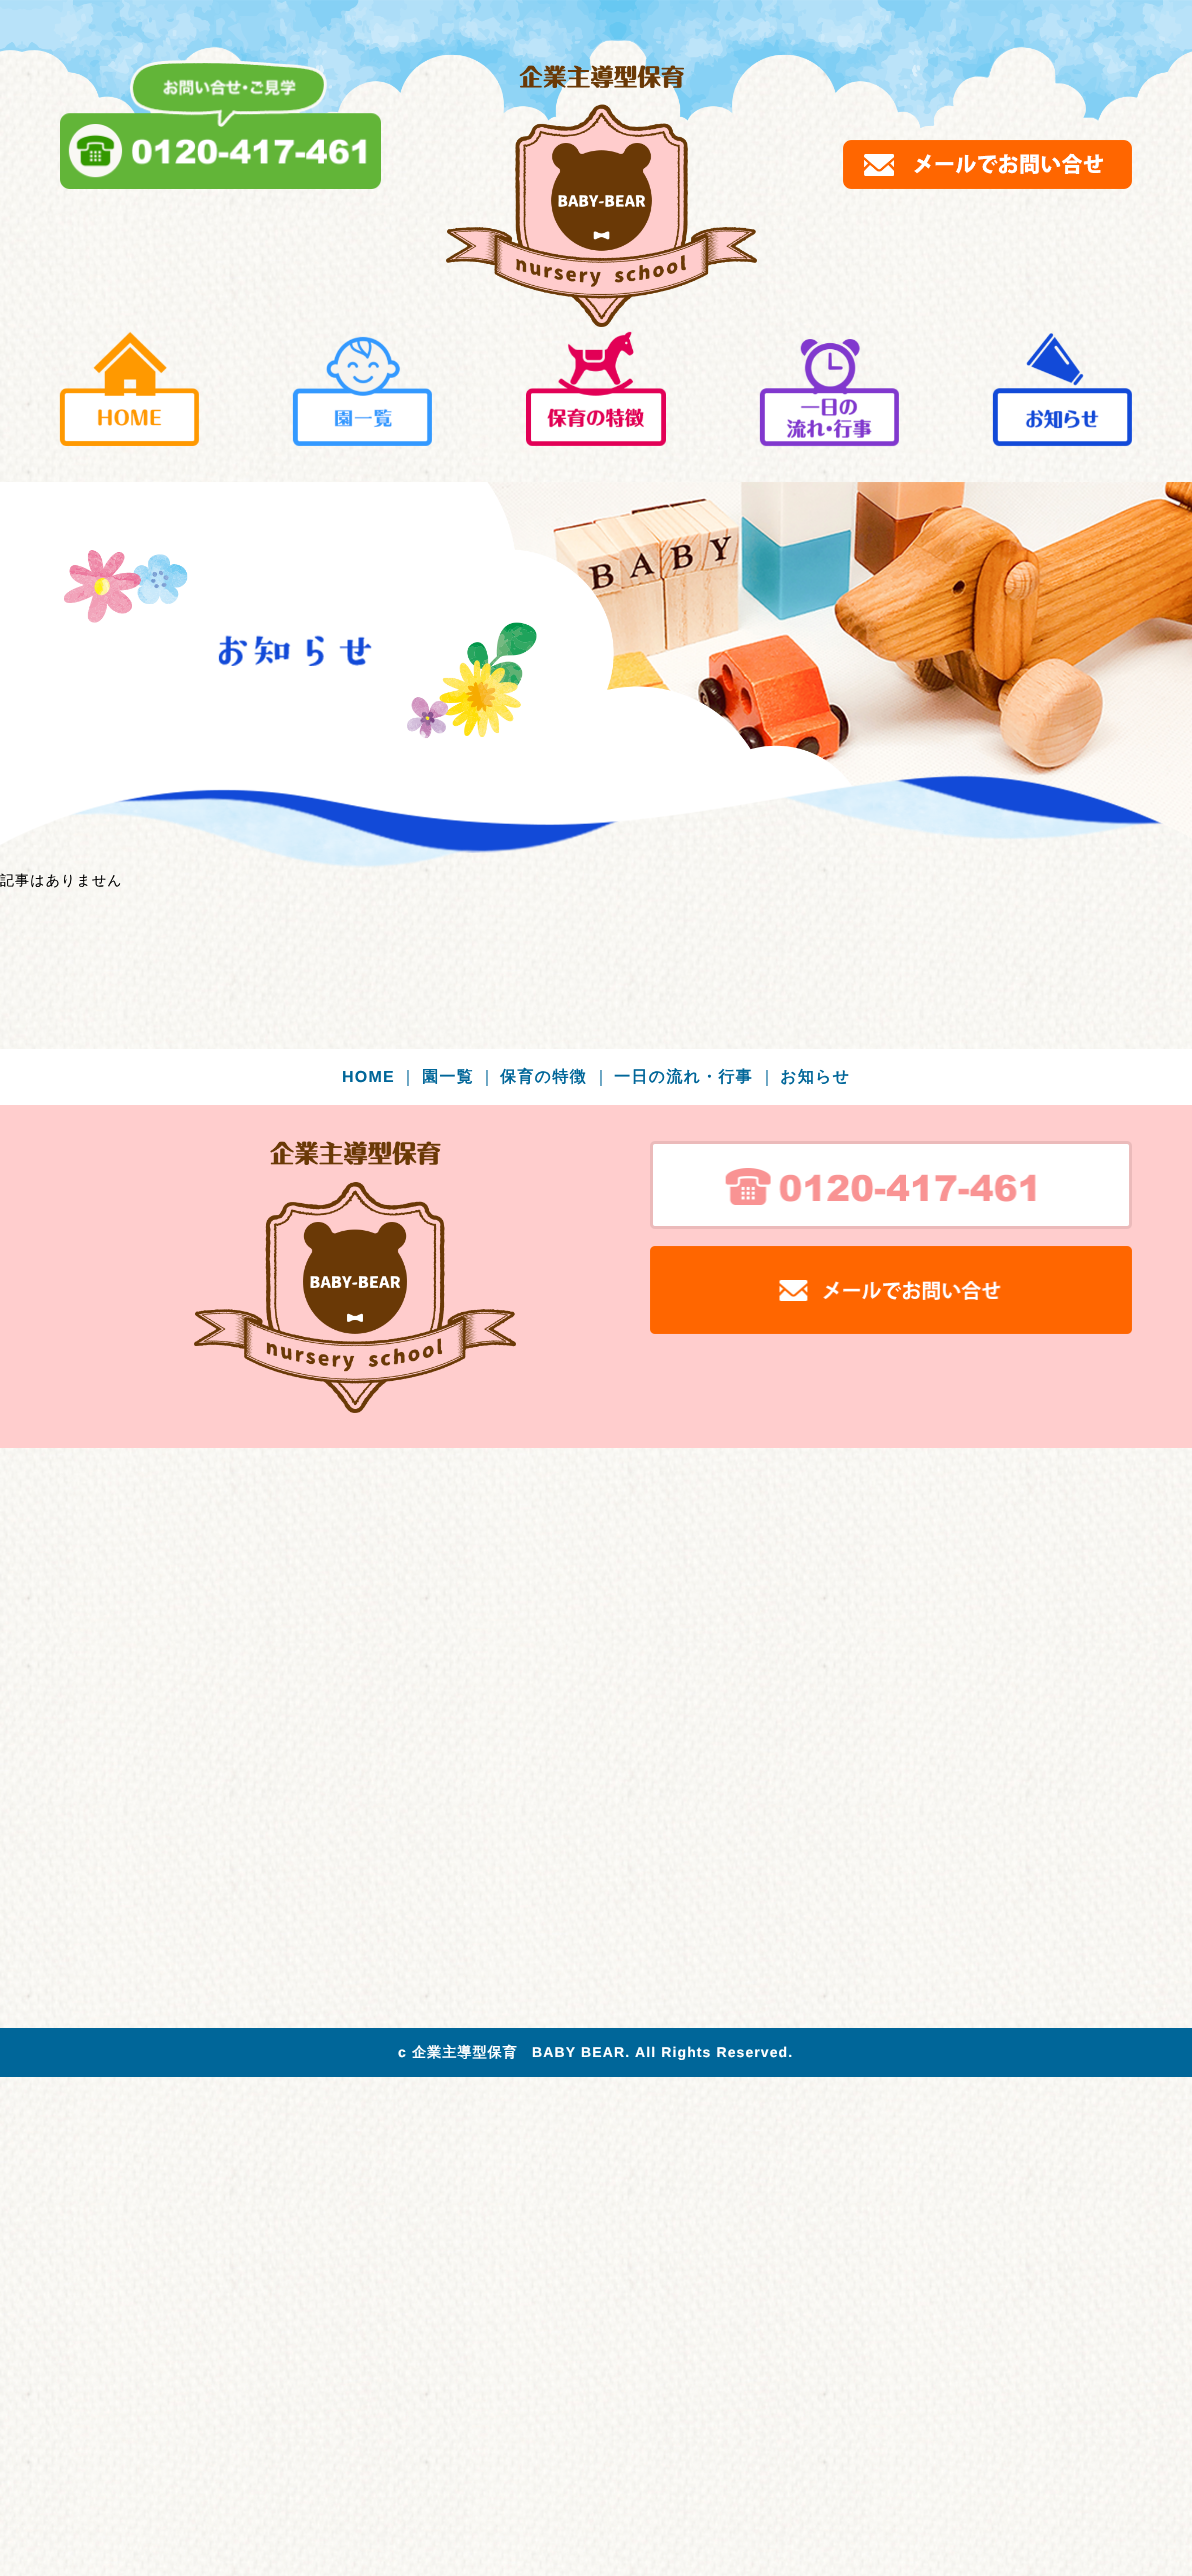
static SkFont makeFont(const char* family, int weight, float size, bool italic = false) {
  SkFontStyle style(weight, SkFontStyle::kNormal_Width,
    italic ? SkFontStyle::kItalic_Slant : SkFontStyle::kUpright_Slant);
  SkFont result(fontMgr->matchFamilyStyle(family, style), size);
  result.setSubpixel(true);
  return result;
}

static void spacedText(SkCanvas* c, const char* s, float x, float y, const SkFont& font, const SkPaint& ink, float letter, float word) {
  std::vector<SkGlyphID> glyphs(font.countText(s, strlen(s), SkTextEncoding::kUTF8));
  std::vector<float> xs(glyphs.size());
  font.textToGlyphs(s, strlen(s), SkTextEncoding::kUTF8, glyphs);
  font.getXPos(glyphs, xs, x);
  float extra = 0;
  for (size_t i = 0; i < glyphs.size(); i++) {
    xs[i] += extra;
    extra += letter + word * (glyphs[i] == font.unicharToGlyph(' '));
  }
  c->drawTextBlob(SkTextBlob::MakeFromPosHGlyphs(glyphs, xs, y, font), 0, 0, ink);
}

static void box(SkCanvas* c, float l, float t, float r, float b, SkColor color) {
  SkPaint ink(SkColor4f::FromColor(color));
  ink.setAntiAlias(true);
  c->drawRect(SkRect::MakeLTRB(l, t, r, b), ink);
}

static void picture(SkCanvas* c, const char* path, float l, float t, float r, float b) {
  auto image = SkImages::DeferredFromEncodedData(SkData::MakeFromFileName(path));
  c->drawImageRect(image, SkRect::MakeLTRB(l, t, r, b), SkSamplingOptions());
}

void draw(SkCanvas* c) {
  SkPaint paint;
  paint.setAntiAlias(true);
  c->clear(0xffffffff);
  picture(c, "img_01.png", 0, 0, 1192, 2576);
  picture(c, "img_02.png", 0, 0, 1192, 128);
  picture(c, "img_03.png", 60, 60, 381, 189);
  picture(c, "img_04.png", 446, 65, 757, 327);
  picture(c, "img_05.png", 843, 140, 1132, 189);
  picture(c, "img_06.png", 59, 331, 199, 446);
  picture(c, "img_07.png", 292, 336, 432, 446);
  picture(c, "img_08.png", 526, 331, 666, 446);
  picture(c, "img_09.png", 759, 339, 899, 447);
  picture(c, "img_10.png", 992, 333, 1132, 447);
  picture(c, "img_11.png", 0, 482, 1192, 868);
  SkFont face1 = makeFont("WenQuanYi Zen Hei", 500, 14);
  paint.setColor(0xff000000);
  spacedText(c, "記事はありません", 0, 885, face1, paint, 1.1f, 0);
  box(c, 0, 1049, 1192, 1105, 0xffffffff);
  SkFont face2 = makeFont("Liberation Sans", 700, 16);
  paint.setColor(0xff006699);
  spacedText(c, "HOME", 342, 1082, face2, paint, 1.25f, 0);
  SkFont face3 = makeFont("WenQuanYi Zen Hei", 500, 16);
  spacedText(c, "｜", 400, 1082, face3, paint, 1.25f, 0);
  SkFont face4 = makeFont("WenQuanYi Zen Hei", 700, 16);
  spacedText(c, "園一覧", 422, 1082, face4, paint, 1.25f, 0);
  spacedText(c, "｜", 479, 1082, face3, paint, 1.25f, 0);
  spacedText(c, "保育の特徴", 500, 1082, face4, paint, 1.25f, 0);
  spacedText(c, "｜", 593, 1082, face3, paint, 1.25f, 0);
  spacedText(c, "一日の流れ・行事", 614, 1082, face4, paint, 1.25f, 0);
  spacedText(c, "｜", 759, 1082, face3, paint, 1.25f, 0);
  spacedText(c, "お知らせ", 780, 1082, face4, paint, 1.25f, 0);
  box(c, 0, 1105, 1192, 1448, 0xffffcdcd);
  picture(c, "img_12.png", 194, 1141, 516, 1413);
  picture(c, "img_13.png", 650, 1141, 1132, 1229);
  picture(c, "img_14.png", 650, 1246, 1132, 1334);
  box(c, 0, 2028, 1192, 2077, 0xff006699);
  SkFont face5 = makeFont("Liberation Sans", 700, 14);
  paint.setColor(0xffffffff);
  spacedText(c, "c", 398, 2057, face5, paint, 1.1f, 0);
  SkFont face6 = makeFont("WenQuanYi Zen Hei", 700, 14);
  spacedText(c, "企業主導型保育", 412, 2057, face6, paint, 1.1f, 0);
  spacedText(c, "BABY BEAR. All Rights Reserved.", 532, 2057, face5, paint, 1.1f, 0);
}
